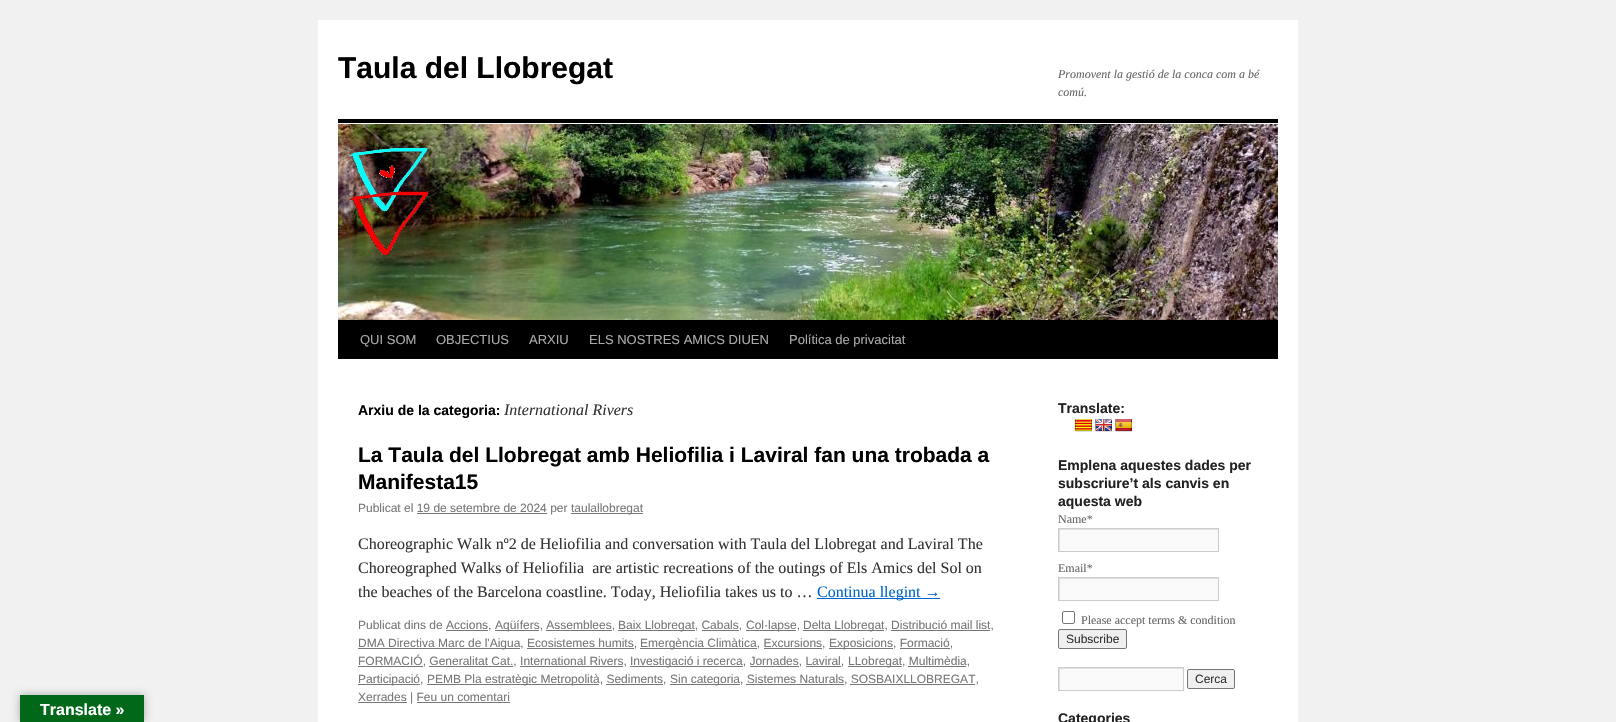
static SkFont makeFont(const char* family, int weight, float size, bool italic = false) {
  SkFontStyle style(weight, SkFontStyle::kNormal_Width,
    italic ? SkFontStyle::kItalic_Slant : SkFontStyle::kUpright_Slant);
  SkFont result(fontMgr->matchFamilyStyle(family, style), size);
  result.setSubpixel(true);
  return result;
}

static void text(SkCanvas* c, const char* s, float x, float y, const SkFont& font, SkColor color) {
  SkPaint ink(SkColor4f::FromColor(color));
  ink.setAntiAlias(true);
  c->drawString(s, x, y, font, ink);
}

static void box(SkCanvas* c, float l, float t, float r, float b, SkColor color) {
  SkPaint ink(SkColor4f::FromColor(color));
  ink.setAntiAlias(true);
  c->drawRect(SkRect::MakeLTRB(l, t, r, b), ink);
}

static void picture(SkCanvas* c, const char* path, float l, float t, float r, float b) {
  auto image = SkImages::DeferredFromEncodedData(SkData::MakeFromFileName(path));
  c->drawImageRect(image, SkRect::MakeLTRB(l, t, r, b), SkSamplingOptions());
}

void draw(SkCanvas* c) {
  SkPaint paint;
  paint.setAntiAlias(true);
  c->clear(0xfff1f1f1);
  paint.setColor(0x4d000000);
  paint.setMaskFilter(SkMaskFilter::MakeBlur(kNormal_SkBlurStyle, 4.5f));
  c->drawRect(SkRect::MakeLTRB(20, 695, 144, 722), paint);
  paint.setMaskFilter(nullptr);
  box(c, 20, 695, 144, 722, 0xff01681a);
  SkFont face1 = makeFont("Liberation Sans", 700, 16);
  text(c, "Translate »", 40, 715, face1, 0xffffffff);
  box(c, 318, 20, 1298, 722, 0xffffffff);
  SkFont face2 = makeFont("Liberation Sans", 700, 30);
  text(c, "Taula del Llobregat", 338, 78, face2, 0xff000000);
  SkFont face3 = makeFont("Liberation Serif", 400, 12, true);
  text(c, "Promovent la gestió de la conca com a bé", 1058, 78, face3, 0xff666666);
  text(c, "comú.", 1058, 96, face3, 0xff666666);
  box(c, 338, 119, 1278, 123, 0xff000000);
  box(c, 338, 320, 1278, 359, 0xff000000);
  picture(c, "img_01.png", 338, 124, 1278, 320);
  SkFont face4 = makeFont("Liberation Sans", 400, 13);
  text(c, "QUI SOM", 360, 344, face4, 0xffaaaaaa);
  text(c, "OBJECTIUS", 436, 344, face4, 0xffaaaaaa);
  text(c, "ARXIU", 529, 344, face4, 0xffaaaaaa);
  text(c, "ELS NOSTRES AMICS DIUEN", 589, 344, face4, 0xffaaaaaa);
  text(c, "Política de privacitat", 789, 344, face4, 0xffaaaaaa);
  SkFont face5 = makeFont("Liberation Sans", 700, 14);
  text(c, "Arxiu de la categoria:", 358, 415, face5, 0xff000000);
  SkFont face6 = makeFont("Liberation Serif", 400, 16, true);
  text(c, "International Rivers", 504, 415, face6, 0xff333333);
  SkFont face7 = makeFont("Liberation Sans", 700, 21);
  text(c, "La Taula del Llobregat amb Heliofilia i Laviral fan una trobada a", 358, 462, face7, 0xff000000);
  text(c, "Manifesta15", 358, 489, face7, 0xff000000);
  SkFont face8 = makeFont("Liberation Sans", 400, 12);
  text(c, "Publicat el 19 de setembre de 2024 per", 358, 512, face8, 0xff777777);
  box(c, 571, 513, 643, 514, 0xff777777);
  text(c, "taulallobregat", 571, 512, face8, 0xff777777);
  box(c, 417, 513, 547, 514, 0xff777777);
  SkFont face9 = makeFont("Liberation Serif", 400, 16);
  text(c, "Choreographic Walk nº2 de Heliofilia and conversation with Taula del Llobregat and Laviral The", 358, 549, face9, 0xff333333);
  text(c, "Choreographed Walks of Heliofilia  are artistic recreations of the outings of Els Amics del Sol on", 358, 573, face9, 0xff333333);
  text(c, "the beaches of the Barcelona coastline. Today, Heliofilia takes us to …", 358, 597, face9, 0xff333333);
  box(c, 817, 598, 940, 599, 0xff0066cc);
  text(c, "Continua llegint →", 817, 597, face9, 0xff0066cc);
  text(c, "Publicat dins de Accions,", 358, 629, face8, 0xff777777);
  box(c, 446, 630, 488, 631, 0xff777777);
  box(c, 495, 630, 539, 631, 0xff777777);
  text(c, "Aqüífers, Assemblees,", 495, 629, face8, 0xff777777);
  box(c, 546, 630, 612, 631, 0xff777777);
  box(c, 618, 630, 695, 631, 0xff777777);
  text(c, "Baix Llobregat, Cabals,", 618, 629, face8, 0xff777777);
  box(c, 702, 630, 739, 631, 0xff777777);
  box(c, 746, 630, 796, 631, 0xff777777);
  text(c, "Col·lapse,", 746, 629, face8, 0xff777777);
  box(c, 803, 630, 884, 631, 0xff777777);
  text(c, "Delta Llobregat, Distribució mail list,", 803, 629, face8, 0xff777777);
  box(c, 891, 630, 990, 631, 0xff777777);
  box(c, 358, 648, 520, 649, 0xff777777);
  text(c, "DMA Directiva Marc de l'Aigua, Ecosistemes humits,", 358, 647, face8, 0xff777777);
  box(c, 527, 648, 634, 649, 0xff777777);
  box(c, 640, 648, 757, 649, 0xff777777);
  text(c, "Emergència Climàtica, Excursions,", 640, 647, face8, 0xff777777);
  box(c, 764, 648, 822, 649, 0xff777777);
  box(c, 829, 648, 893, 649, 0xff777777);
  text(c, "Exposicions, Formació,", 829, 647, face8, 0xff777777);
  box(c, 900, 648, 950, 649, 0xff777777);
  box(c, 358, 666, 423, 667, 0xff777777);
  text(c, "FORMACIÓ, Generalitat Cat., International Rivers,", 358, 665, face8, 0xff777777);
  box(c, 429, 666, 513, 667, 0xff777777);
  box(c, 520, 666, 623, 667, 0xff777777);
  box(c, 630, 666, 743, 667, 0xff777777);
  text(c, "Investigació i recerca, Jornades, Laviral,", 630, 665, face8, 0xff777777);
  box(c, 750, 666, 799, 667, 0xff777777);
  box(c, 806, 666, 841, 667, 0xff777777);
  box(c, 848, 666, 902, 667, 0xff777777);
  text(c, "LLobregat, Multimèdia,", 848, 665, face8, 0xff777777);
  box(c, 908, 666, 966, 667, 0xff777777);
  box(c, 358, 684, 420, 685, 0xff777777);
  text(c, "Participació,", 358, 683, face8, 0xff777777);
  box(c, 427, 684, 599, 685, 0xff777777);
  text(c, "PEMB Pla estratègic Metropolità, Sediments,", 427, 683, face8, 0xff777777);
  box(c, 606, 684, 663, 685, 0xff777777);
  box(c, 670, 684, 740, 685, 0xff777777);
  text(c, "Sin categoria, Sistemes Naturals, SOSBAIXLLOBREGAT,", 670, 683, face8, 0xff777777);
  box(c, 746, 684, 844, 685, 0xff777777);
  box(c, 850, 684, 975, 685, 0xff777777);
  box(c, 358, 702, 407, 703, 0xff777777);
  text(c, "Xerrades | Feu un comentari", 358, 701, face8, 0xff777777);
  box(c, 417, 702, 510, 703, 0xff777777);
  text(c, "Translate:", 1058, 413, face5, 0xff222222);
  picture(c, "img_02.png", 1074, 419, 1092, 432);
  picture(c, "img_03.png", 1095, 419, 1112, 432);
  picture(c, "img_04.png", 1115, 419, 1132, 432);
  text(c, "Emplena aquestes dades per", 1058, 470, face5, 0xff222222);
  text(c, "subscriure’t als canvis en", 1058, 488, face5, 0xff222222);
  text(c, "aquesta web", 1058, 506, face5, 0xff222222);
  SkFont face10 = makeFont("Liberation Serif", 400, 12);
  text(c, "Name*", 1058, 523, face10, 0xff666666);
  box(c, 1060, 530, 1218, 551, 0xfff9f9f9);
  c->save();
  c->clipRect(SkRect::MakeLTRB(1059, 529, 1218, 551));
  paint.setColor(0xffe0e0e0);
  c->drawPath(SkPathBuilder(SkPathFillType::kEvenOdd).moveTo(960, 430).lineTo(1317, 430).lineTo(1317, 650).lineTo(960, 650).close().moveTo(1060, 530).lineTo(1219, 530).lineTo(1219, 552).lineTo(1060, 552).close().detach(), paint);
  c->restore();
  paint.setStyle(SkPaint::kStroke_Style);
  paint.setStrokeWidth(1);
  paint.setColor(0xffcccccc);
  c->drawRect(SkRect::MakeLTRB(1058.5f, 528.5f, 1218.5f, 551.5f), paint);
  text(c, "Email*", 1058, 572, face10, 0xff666666);
  box(c, 1060, 579, 1218, 600, 0xfff9f9f9);
  c->save();
  c->clipRect(SkRect::MakeLTRB(1059, 578, 1218, 600));
  paint.setStyle(SkPaint::kFill_Style);
  paint.setColor(0xffe0e0e0);
  c->drawPath(SkPathBuilder(SkPathFillType::kEvenOdd).moveTo(960, 479).lineTo(1317, 479).lineTo(1317, 699).lineTo(960, 699).close().moveTo(1060, 579).lineTo(1219, 579).lineTo(1219, 601).lineTo(1060, 601).close().detach(), paint);
  c->restore();
  paint.setStyle(SkPaint::kStroke_Style);
  paint.setColor(0xffcccccc);
  c->drawRect(SkRect::MakeLTRB(1058.5f, 577.5f, 1218.5f, 600.5f), paint);
  paint.setColor(0xff767676);
  c->drawRoundRect(SkRect::MakeLTRB(1062.5f, 611.5f, 1074.5f, 623.5f), 1.5f, 1.5f, paint);
  text(c, "Please accept terms & condition", 1081, 624, face10, 0xff666666);
  paint.setStyle(SkPaint::kFill_Style);
  paint.setColor(0xffefefef);
  c->drawRoundRect(SkRect::MakeLTRB(1058.5f, 629.5f, 1126.5f, 648.5f), 1.5f, 1.5f, paint);
  paint.setStyle(SkPaint::kStroke_Style);
  paint.setColor(0xff767676);
  c->drawRoundRect(SkRect::MakeLTRB(1058.5f, 629.5f, 1126.5f, 648.5f), 1.5f, 1.5f, paint);
  text(c, "Subscribe", 1066, 643, face8, 0xff333333);
  box(c, 1060, 669, 1183, 690, 0xfff9f9f9);
  c->save();
  c->clipRect(SkRect::MakeLTRB(1059, 668, 1183, 690));
  paint.setStyle(SkPaint::kFill_Style);
  paint.setColor(0xffe0e0e0);
  c->drawPath(SkPathBuilder(SkPathFillType::kEvenOdd).moveTo(960, 569).lineTo(1282, 569).lineTo(1282, 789).lineTo(960, 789).close().moveTo(1060, 669).lineTo(1184, 669).lineTo(1184, 691).lineTo(1060, 691).close().detach(), paint);
  c->restore();
  paint.setStyle(SkPaint::kStroke_Style);
  paint.setColor(0xffcccccc);
  c->drawRect(SkRect::MakeLTRB(1058.5f, 667.5f, 1183.5f, 690.5f), paint);
  paint.setStyle(SkPaint::kFill_Style);
  paint.setColor(0xffefefef);
  c->drawRoundRect(SkRect::MakeLTRB(1187.5f, 669.5f, 1234.5f, 688.5f), 1.5f, 1.5f, paint);
  paint.setStyle(SkPaint::kStroke_Style);
  paint.setColor(0xff767676);
  c->drawRoundRect(SkRect::MakeLTRB(1187.5f, 669.5f, 1234.5f, 688.5f), 1.5f, 1.5f, paint);
  text(c, "Cerca", 1195, 683, face8, 0xff333333);
  text(c, "Categories", 1058, 723, face5, 0xff222222);
}
